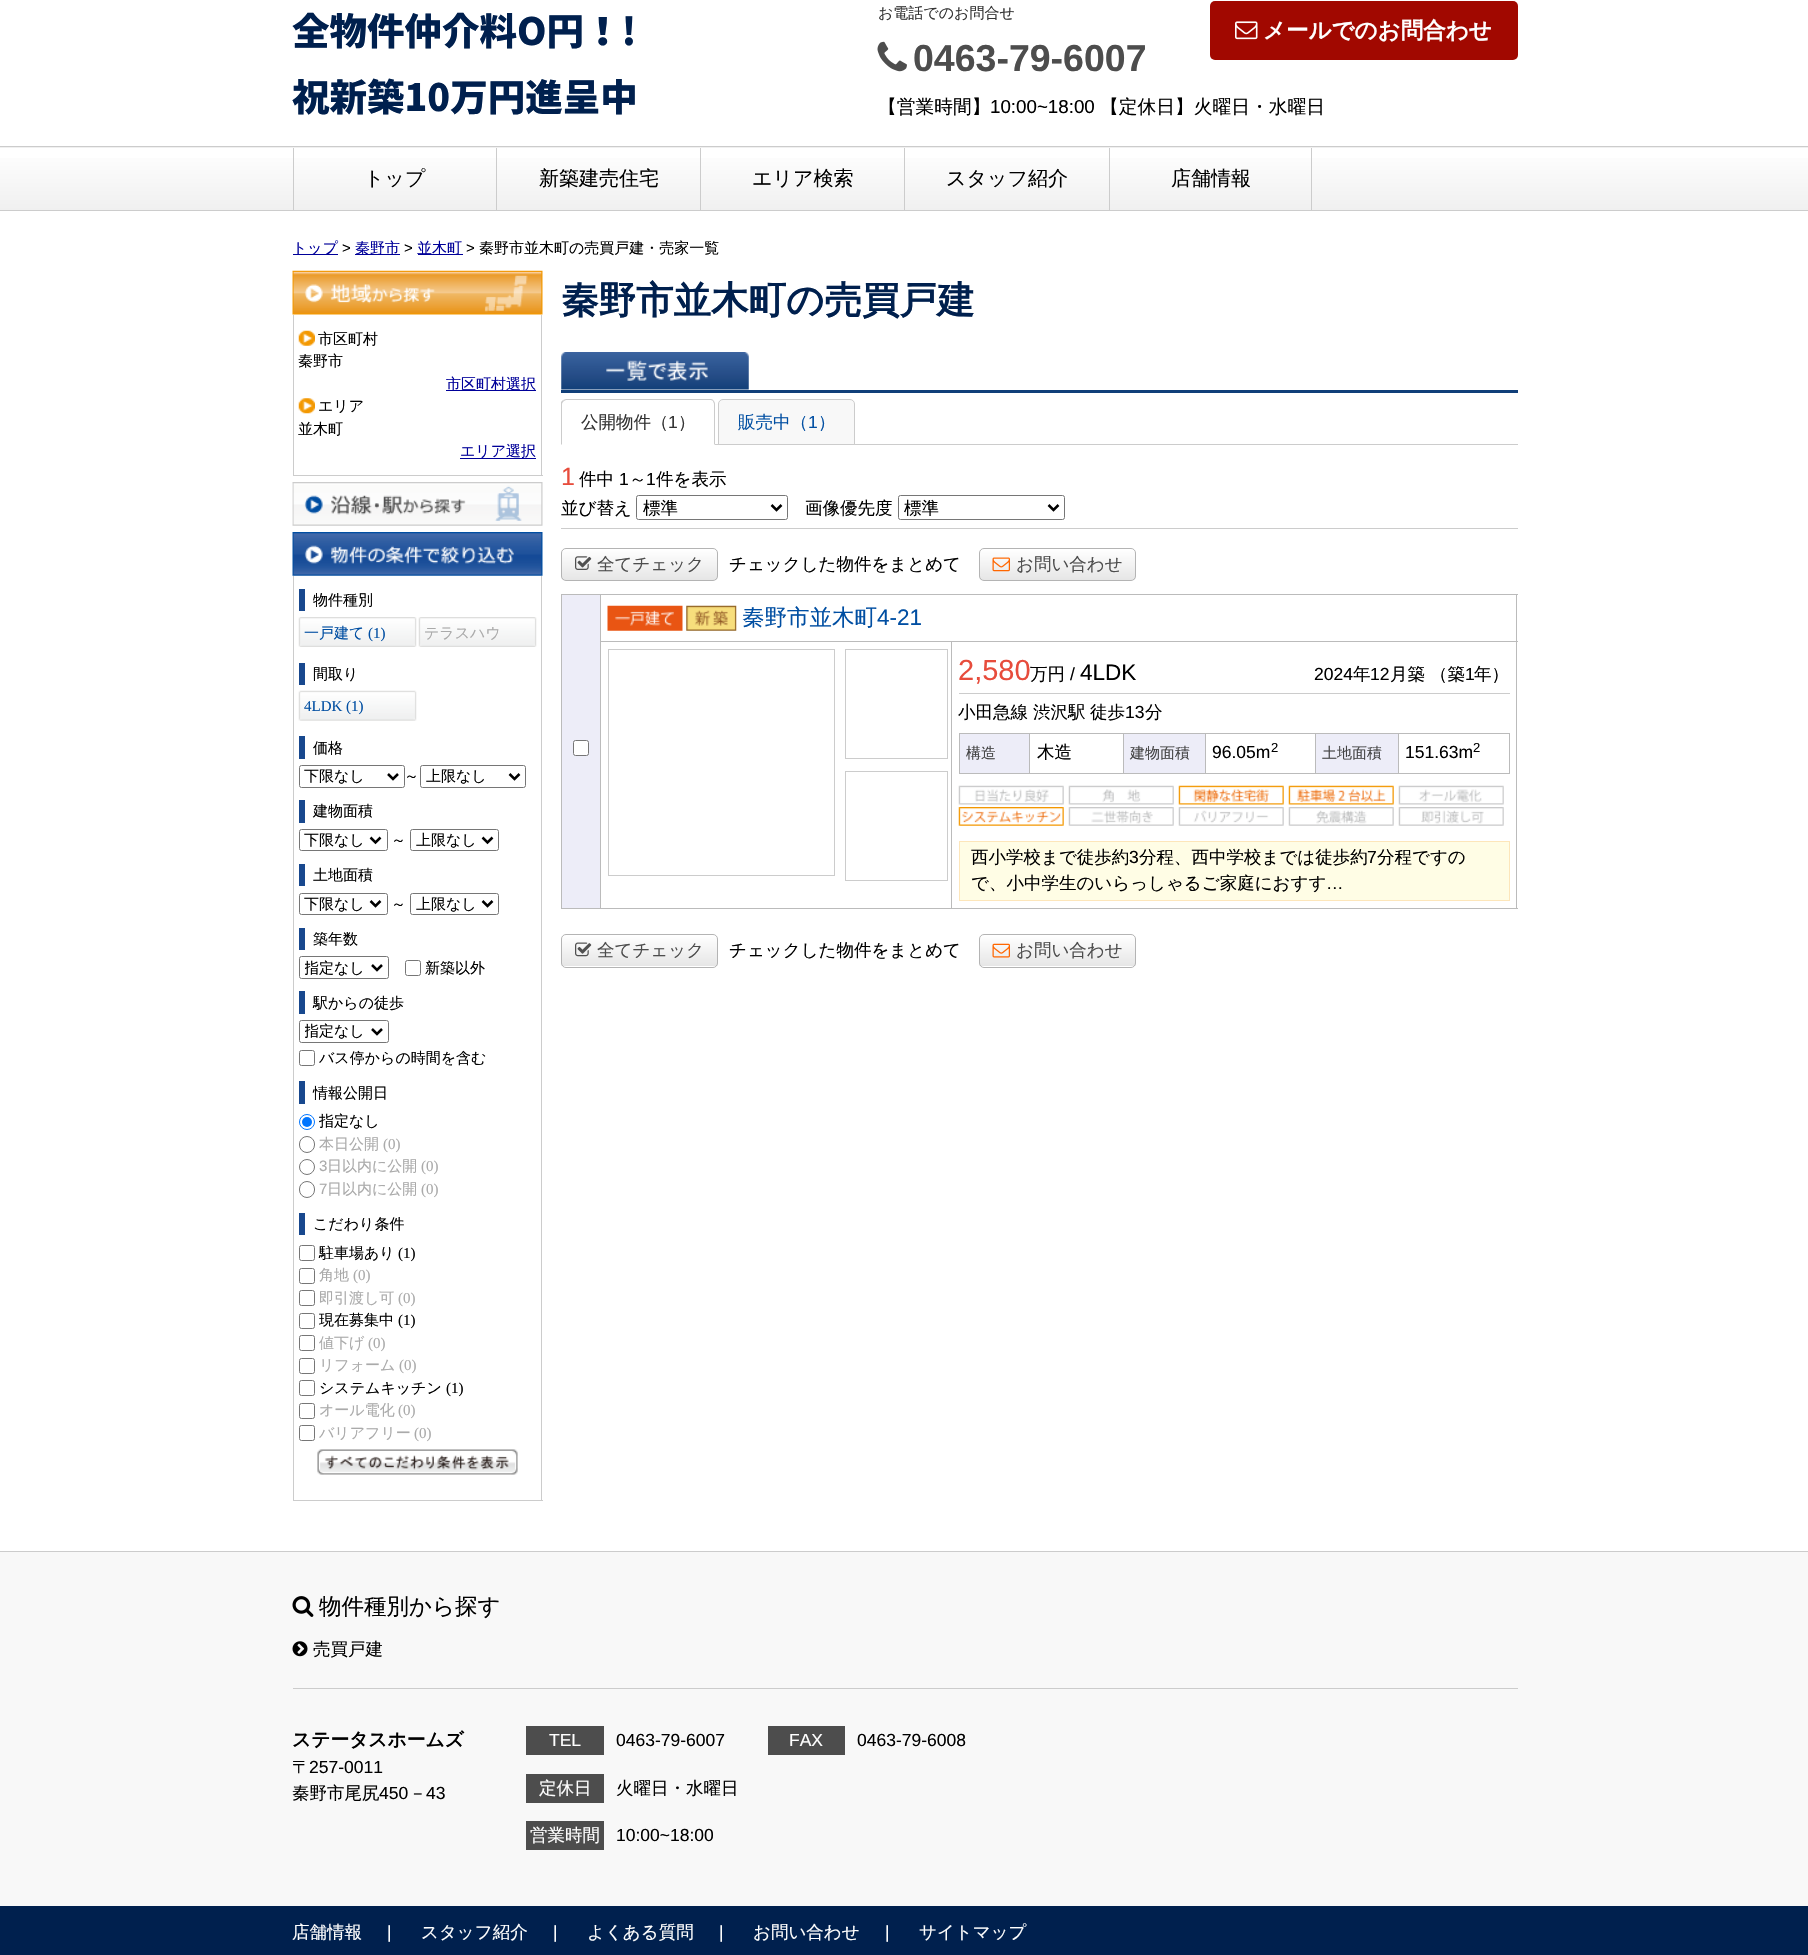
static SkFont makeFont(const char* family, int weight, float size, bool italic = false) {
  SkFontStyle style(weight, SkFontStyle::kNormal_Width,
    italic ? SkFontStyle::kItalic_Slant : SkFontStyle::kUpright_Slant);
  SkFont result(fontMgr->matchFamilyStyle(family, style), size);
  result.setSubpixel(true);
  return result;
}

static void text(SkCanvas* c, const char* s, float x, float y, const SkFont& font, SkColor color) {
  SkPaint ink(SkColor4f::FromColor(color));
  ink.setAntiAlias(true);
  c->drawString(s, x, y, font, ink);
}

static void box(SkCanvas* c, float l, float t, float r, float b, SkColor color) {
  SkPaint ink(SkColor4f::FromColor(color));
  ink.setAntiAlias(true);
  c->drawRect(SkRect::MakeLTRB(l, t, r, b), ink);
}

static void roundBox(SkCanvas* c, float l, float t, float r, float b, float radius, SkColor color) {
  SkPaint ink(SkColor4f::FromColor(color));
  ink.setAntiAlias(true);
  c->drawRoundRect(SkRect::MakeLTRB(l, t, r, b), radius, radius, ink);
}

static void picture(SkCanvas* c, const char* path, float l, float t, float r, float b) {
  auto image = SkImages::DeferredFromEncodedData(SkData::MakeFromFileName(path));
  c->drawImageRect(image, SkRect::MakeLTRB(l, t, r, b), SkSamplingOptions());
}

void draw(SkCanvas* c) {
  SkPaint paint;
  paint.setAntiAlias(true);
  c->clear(0xffffffff);
  SkFont face1 = makeFont("Noto Sans JP", 900, 37.5f);
  text(c, "全物件仲介料O円！!", 292, 45, face1, 0xff00204e);
  text(c, "祝新築10万円進呈中", 292, 111, face1, 0xff00204e);
  SkFont face2 = makeFont("WenQuanYi Zen Hei", 500, 15);
  text(c, "お電話でのお問合せ", 878, 18, face2, 0xff333333);
  picture(c, "img_01.png", 877, 41, 907, 72);
  SkFont face3 = makeFont("Liberation Sans", 700, 37.5f);
  text(c, "0463-79-6007", 913, 71, face3, 0xff4d4d4d);
  roundBox(c, 1210, 1, 1518, 60, 5, 0xffa10800);
  picture(c, "img_02.png", 1235, 21, 1258, 40);
  SkFont face4 = makeFont("WenQuanYi Zen Hei", 700, 22.5f);
  text(c, "メールでのお問合わせ", 1263, 38, face4, 0xffffffff);
  SkFont face5 = makeFont("WenQuanYi Zen Hei", 500, 18.75f);
  text(c, "【営業時間】", 878, 113, face5, 0xff000000);
  SkFont face6 = makeFont("Liberation Sans", 400, 18.75f);
  text(c, "10:00~18:00", 990, 113, face6, 0xff000000);
  text(c, "【定休日】火曜日・水曜日", 1100, 113, face5, 0xff000000);
  {
    const SkColor colors[] = {0xffffffff, 0xfff0f0f0};
    const float stops[] = {0, 1};
    const SkPoint ends[] = {{904, 85}, {904, 148}};
    paint.setShader(SkGradientShader::MakeLinear(ends, colors, stops, 2, SkTileMode::kClamp));
    paint.setAlpha(255);
  }
  c->drawRect(SkRect::MakeLTRB(0, 147, 1808, 148), paint);
  {
    const SkColor colors[] = {0xffffffff, 0xfff0f0f0};
    const float stops[] = {0, 1};
    const SkPoint ends[] = {{904, 147}, {904, 210}};
    paint.setShader(SkGradientShader::MakeLinear(ends, colors, stops, 2, SkTileMode::kClamp));
    paint.setAlpha(255);
  }
  c->drawRect(SkRect::MakeLTRB(0, 158, 1808, 210), paint);
  box(c, 0, 146, 1808, 147, 0xffcccccc);
  box(c, 0, 210, 1808, 211, 0xffcccccc);
  box(c, 293, 148, 294, 210, 0xffcccccc);
  SkFont face7 = makeFont("WenQuanYi Zen Hei", 500, 20);
  text(c, "トップ", 364, 185, face7, 0xff000000);
  box(c, 496, 148, 497, 210, 0xffcccccc);
  text(c, "新築建売住宅", 539, 185, face7, 0xff000000);
  box(c, 700, 148, 701, 210, 0xffcccccc);
  text(c, "エリア検索", 752, 185, face7, 0xff000000);
  box(c, 904, 148, 905, 210, 0xffcccccc);
  text(c, "スタッフ紹介", 946, 185, face7, 0xff000000);
  box(c, 1311, 148, 1312, 210, 0xffcccccc);
  box(c, 1109, 148, 1110, 210, 0xffcccccc);
  text(c, "店舗情報", 1171, 185, face7, 0xff000000);
  box(c, 293, 254, 338, 255, 0xff000099);
  text(c, "トップ", 292, 253, face2, 0xff000099);
  SkFont face8 = makeFont("Liberation Sans", 400, 15);
  text(c, ">", 342, 253, face8, 0xff000000);
  box(c, 355, 254, 400, 255, 0xff000099);
  text(c, "秦野市", 355, 253, face2, 0xff000099);
  text(c, ">", 404, 253, face8, 0xff000000);
  box(c, 418, 254, 463, 255, 0xff000099);
  text(c, "並木町", 417, 253, face2, 0xff000099);
  text(c, ">", 466, 253, face8, 0xff000000);
  text(c, "秦野市並木町の売買戸建・売家一覧", 479, 253, face2, 0xff000000);
  picture(c, "img_03.png", 292, 270, 543, 315);
  box(c, 541, 315, 542, 476, 0xffcccccc);
  box(c, 293, 475, 543, 476, 0xffcccccc);
  box(c, 293, 315, 294, 476, 0xffcccccc);
  picture(c, "img_04.png", 298, 330, 315, 346);
  text(c, "市区町村", 318, 344, face2, 0xff000000);
  text(c, "秦野市", 298, 366, face2, 0xff000000);
  box(c, 446, 390, 536, 391, 0xff000099);
  text(c, "市区町村選択", 446, 389, face2, 0xff000099);
  picture(c, "img_05.png", 298, 398, 315, 414);
  text(c, "エリア", 318, 411, face2, 0xff000000);
  text(c, "並木町", 298, 434, face2, 0xff000000);
  box(c, 460, 458, 536, 459, 0xff000099);
  text(c, "エリア選択", 460, 456, face2, 0xff000099);
  picture(c, "img_06.png", 292, 482, 543, 526);
  picture(c, "img_07.png", 292, 532, 543, 576);
  box(c, 541, 576, 542, 1501, 0xffcccccc);
  box(c, 293, 1500, 543, 1501, 0xffcccccc);
  box(c, 293, 576, 294, 1501, 0xffcccccc);
  box(c, 299, 589, 305, 611, 0xff18488e);
  text(c, "物件種別", 313, 605, face2, 0xff000000);
  picture(c, "img_08.png", 298, 617, 417, 647);
  text(c, "一戸建て", 304, 638, face2, 0xff004ea2);
  SkFont face9 = makeFont("Liberation Serif", 400, 15);
  text(c, "(1)", 368, 638, face9, 0xff004ea2);
  picture(c, "img_08.png", 418, 617, 537, 647);
  text(c, "テラスハウ", 424, 638, face2, 0xffaaaaaa);
  box(c, 299, 663, 305, 685, 0xff18488e);
  text(c, "間取り", 313, 679, face2, 0xff000000);
  picture(c, "img_09.png", 298, 690, 417, 721);
  text(c, "4LDK (1)", 304, 711, face9, 0xff004ea2);
  box(c, 299, 736, 305, 759, 0xff18488e);
  text(c, "価格", 313, 753, face2, 0xff000000);
  paint.setStyle(SkPaint::kStroke_Style);
  paint.setStrokeWidth(1);
  paint.setShader(nullptr);
  paint.setColor(0xff767676);
  c->drawRoundRect(SkRect::MakeLTRB(299.5f, 765.5f, 404.5f, 787.5f), 2, 2, paint);
  paint.setStrokeWidth(2.5f);
  paint.setColor(0xff000000);
  c->drawPath(SkPathBuilder().moveTo(388, 774).lineTo(393, 779).lineTo(398, 774).detach(), paint);
  text(c, "下限なし", 304, 781, face2, 0xff000000);
  text(c, "～", 404, 781, face2, 0xff000000);
  paint.setStrokeWidth(1);
  paint.setColor(0xff767676);
  c->drawRoundRect(SkRect::MakeLTRB(420.5f, 765.5f, 525.5f, 787.5f), 2, 2, paint);
  paint.setStrokeWidth(2.5f);
  paint.setColor(0xff000000);
  c->drawPath(SkPathBuilder().moveTo(509.5f, 774).lineTo(514.5f, 779).lineTo(519.5f, 774).detach(), paint);
  text(c, "上限なし", 426, 781, face2, 0xff000000);
  box(c, 299, 800, 305, 823, 0xff18488e);
  text(c, "建物面積", 313, 816, face2, 0xff000000);
  paint.setStrokeWidth(1);
  paint.setColor(0xff767676);
  c->drawRoundRect(SkRect::MakeLTRB(299.5f, 829.5f, 387.5f, 850.5f), 2, 2, paint);
  paint.setStrokeWidth(2.5f);
  paint.setColor(0xff000000);
  c->drawPath(SkPathBuilder().moveTo(370.5f, 837.5f).lineTo(375.5f, 842.5f).lineTo(380.5f, 837.5f).detach(), paint);
  text(c, "下限なし", 304, 845, face2, 0xff000000);
  text(c, "～", 391, 845, face2, 0xff000000);
  paint.setStrokeWidth(1);
  paint.setColor(0xff767676);
  c->drawRoundRect(SkRect::MakeLTRB(410.5f, 829.5f, 498.5f, 850.5f), 2, 2, paint);
  paint.setStrokeWidth(2.5f);
  paint.setColor(0xff000000);
  c->drawPath(SkPathBuilder().moveTo(482.5f, 837.5f).lineTo(487.5f, 842.5f).lineTo(492.5f, 837.5f).detach(), paint);
  text(c, "上限なし", 416, 845, face2, 0xff000000);
  box(c, 299, 864, 305, 886, 0xff18488e);
  text(c, "土地面積", 313, 880, face2, 0xff000000);
  paint.setStrokeWidth(1);
  paint.setColor(0xff767676);
  c->drawRoundRect(SkRect::MakeLTRB(299.5f, 893.5f, 387.5f, 914.5f), 2, 2, paint);
  paint.setStrokeWidth(2.5f);
  paint.setColor(0xff000000);
  c->drawPath(SkPathBuilder().moveTo(370.5f, 901).lineTo(375.5f, 906).lineTo(380.5f, 901).detach(), paint);
  text(c, "下限なし", 304, 909, face2, 0xff000000);
  text(c, "～", 391, 909, face2, 0xff000000);
  paint.setStrokeWidth(1);
  paint.setColor(0xff767676);
  c->drawRoundRect(SkRect::MakeLTRB(410.5f, 893.5f, 498.5f, 914.5f), 2, 2, paint);
  paint.setStrokeWidth(2.5f);
  paint.setColor(0xff000000);
  c->drawPath(SkPathBuilder().moveTo(482.5f, 901).lineTo(487.5f, 906).lineTo(492.5f, 901).detach(), paint);
  text(c, "上限なし", 416, 909, face2, 0xff000000);
  box(c, 299, 928, 305, 950, 0xff18488e);
  text(c, "築年数", 313, 944, face2, 0xff000000);
  paint.setStrokeWidth(1);
  paint.setColor(0xff767676);
  c->drawRoundRect(SkRect::MakeLTRB(299.5f, 956.5f, 388.5f, 978.5f), 2, 2, paint);
  paint.setStrokeWidth(2.5f);
  paint.setColor(0xff000000);
  c->drawPath(SkPathBuilder().moveTo(372, 965).lineTo(377, 970).lineTo(382, 965).detach(), paint);
  c->save();
  c->clipRect(SkRect::MakeLTRB(305, 958, 368, 978));
  text(c, "指定なし", 304, 973, face2, 0xff000000);
  c->restore();
  paint.setStrokeWidth(1);
  paint.setColor(0xff767676);
  c->drawRoundRect(SkRect::MakeLTRB(405.5f, 960.5f, 420.5f, 975.5f), 2, 2, paint);
  text(c, "新築以外", 425, 973, face2, 0xff000000);
  box(c, 299, 991, 305, 1014, 0xff18488e);
  text(c, "駅からの徒歩", 313, 1008, face2, 0xff000000);
  c->drawRoundRect(SkRect::MakeLTRB(299.5f, 1020.5f, 388.5f, 1042.5f), 2, 2, paint);
  paint.setStrokeWidth(2.5f);
  paint.setColor(0xff000000);
  c->drawPath(SkPathBuilder().moveTo(372, 1029).lineTo(377, 1034).lineTo(382, 1029).detach(), paint);
  c->save();
  c->clipRect(SkRect::MakeLTRB(305, 1021, 368, 1041));
  text(c, "指定なし", 304, 1036, face2, 0xff000000);
  c->restore();
  paint.setStrokeWidth(1);
  paint.setColor(0xff767676);
  c->drawRoundRect(SkRect::MakeLTRB(299.5f, 1050.5f, 314.5f, 1065.5f), 2, 2, paint);
  text(c, "バス停からの時間を含む", 319, 1063, face2, 0xff000000);
  box(c, 299, 1081, 305, 1104, 0xff18488e);
  text(c, "情報公開日", 313, 1098, face2, 0xff000000);
  paint.setColor(0xff0075ff);
  c->drawCircle(307, 1122, 7.5f, paint);
  paint.setStyle(SkPaint::kFill_Style);
  c->drawCircle(307, 1122, 5, paint);
  text(c, "指定なし", 319, 1126, face2, 0xff000000);
  paint.setStyle(SkPaint::kStroke_Style);
  paint.setColor(0xff767676);
  c->drawRoundRect(SkRect::MakeLTRB(299.5f, 1136.5f, 314.5f, 1152.5f), 7.5f, 7.5f, paint);
  text(c, "本日公開", 319, 1149, face2, 0xffaaaaaa);
  text(c, "(0)", 383, 1149, face9, 0xffaaaaaa);
  c->drawCircle(307, 1167, 7.5f, paint);
  text(c, "3", 319, 1171, face8, 0xffaaaaaa);
  text(c, "日以内に公開", 327, 1171, face2, 0xffaaaaaa);
  text(c, "(0)", 421, 1171, face9, 0xffaaaaaa);
  c->drawRoundRect(SkRect::MakeLTRB(299.5f, 1181.5f, 314.5f, 1197.5f), 7.5f, 7.5f, paint);
  text(c, "7", 319, 1194, face8, 0xffaaaaaa);
  text(c, "日以内に公開", 327, 1194, face2, 0xffaaaaaa);
  text(c, "(0)", 421, 1194, face9, 0xffaaaaaa);
  box(c, 299, 1213, 305, 1235, 0xff18488e);
  text(c, "こだわり条件", 313, 1229, face2, 0xff000000);
  c->drawRoundRect(SkRect::MakeLTRB(299.5f, 1245.5f, 314.5f, 1260.5f), 2, 2, paint);
  text(c, "駐車場あり", 319, 1258, face2, 0xff000000);
  text(c, "(1)", 398, 1258, face9, 0xff000000);
  c->drawRoundRect(SkRect::MakeLTRB(299.5f, 1268.5f, 314.5f, 1283.5f), 2, 2, paint);
  text(c, "角地", 319, 1280, face2, 0xffaaaaaa);
  text(c, "(0)", 353, 1280, face9, 0xffaaaaaa);
  c->drawRoundRect(SkRect::MakeLTRB(299.5f, 1290.5f, 314.5f, 1305.5f), 2, 2, paint);
  text(c, "即引渡し可", 319, 1303, face2, 0xffaaaaaa);
  text(c, "(0)", 398, 1303, face9, 0xffaaaaaa);
  c->drawRoundRect(SkRect::MakeLTRB(299.5f, 1313.5f, 314.5f, 1328.5f), 2, 2, paint);
  text(c, "現在募集中", 319, 1325, face2, 0xff000000);
  text(c, "(1)", 398, 1325, face9, 0xff000000);
  c->drawRoundRect(SkRect::MakeLTRB(299.5f, 1335.5f, 314.5f, 1350.5f), 2, 2, paint);
  text(c, "値下げ", 319, 1348, face2, 0xffaaaaaa);
  text(c, "(0)", 368, 1348, face9, 0xffaaaaaa);
  c->drawRoundRect(SkRect::MakeLTRB(299.5f, 1358.5f, 314.5f, 1373.5f), 2, 2, paint);
  text(c, "リフォーム", 319, 1370, face2, 0xffaaaaaa);
  text(c, "(0)", 399, 1370, face9, 0xffaaaaaa);
  c->drawRoundRect(SkRect::MakeLTRB(299.5f, 1380.5f, 314.5f, 1395.5f), 2, 2, paint);
  text(c, "システムキッチン", 319, 1393, face2, 0xff000000);
  text(c, "(1)", 446, 1393, face9, 0xff000000);
  c->drawRoundRect(SkRect::MakeLTRB(299.5f, 1403.5f, 314.5f, 1418.5f), 2, 2, paint);
  text(c, "オール電化", 319, 1415, face2, 0xffaaaaaa);
  text(c, "(0)", 398, 1415, face9, 0xffaaaaaa);
  c->drawRoundRect(SkRect::MakeLTRB(299.5f, 1425.5f, 314.5f, 1440.5f), 2, 2, paint);
  text(c, "バリアフリー", 319, 1438, face2, 0xffaaaaaa);
  text(c, "(0)", 414, 1438, face9, 0xffaaaaaa);
  picture(c, "img_10.png", 317, 1449, 518, 1475);
  SkFont face10 = makeFont("WenQuanYi Zen Hei", 700, 37.5f);
  text(c, "秦野市並木町の売買戸建", 561, 313, face10, 0xff00204e);
  box(c, 561, 390, 1518, 393, 0xff103f79);
  picture(c, "img_11.png", 561, 352, 749, 390);
  box(c, 715, 444, 1518, 445, 0xffcccccc);
  paint.setStyle(SkPaint::kFill_Style);
  paint.setColor(0xffcccccc);
  c->drawPath(SkPathBuilder().moveTo(566, 399).lineTo(563, 400).lineTo(564, 401).lineTo(566, 400).lineTo(710, 400).cubicTo(711, 400, 712, 400, 713, 401).lineTo(713, 400).cubicTo(713, 399, 711, 399, 710, 399).close().detach(), paint);
  c->drawPath(SkPathBuilder().moveTo(713, 400).cubicTo(714, 401, 715, 402, 715, 404).lineTo(715, 445).lineTo(714, 444).lineTo(714, 404).cubicTo(714, 403, 713, 402, 713, 401).close().detach(), paint);
  c->drawPath(SkPathBuilder().moveTo(561, 445).lineTo(562, 444).lineTo(562, 404).cubicTo(562, 403, 563, 402, 564, 401).lineTo(563, 400).lineTo(561, 402).close().detach(), paint);
  SkFont face11 = makeFont("WenQuanYi Zen Hei", 500, 17.5f);
  text(c, "公開物件（", 581, 428, face11, 0xff333333);
  SkFont face12 = makeFont("Liberation Sans", 400, 17.5f);
  text(c, "1", 668, 428, face12, 0xff333333);
  text(c, "）", 678, 428, face11, 0xff333333);
  paint.setColor(0xfff8f8f8);
  c->drawPath(SkPathBuilder().moveTo(723, 399.5f).lineTo(850, 399.5f).cubicTo(852.5f, 399.5f, 854.5f, 401.5f, 854.5f, 404).lineTo(854.5f, 444.5f).lineTo(718.5f, 444.5f).lineTo(718.5f, 404).cubicTo(718.5f, 401.5f, 720.5f, 399.5f, 723, 399.5f).close().detach(), paint);
  paint.setStyle(SkPaint::kStroke_Style);
  paint.setColor(0xffcccccc);
  c->drawPath(SkPathBuilder().moveTo(723, 399.5f).lineTo(850, 399.5f).cubicTo(852.5f, 399.5f, 854.5f, 401.5f, 854.5f, 404).lineTo(854.5f, 444.5f).lineTo(718.5f, 444.5f).lineTo(718.5f, 404).cubicTo(718.5f, 401.5f, 720.5f, 399.5f, 723, 399.5f).close().detach(), paint);
  text(c, "販売中（", 738, 428, face11, 0xff004ea2);
  text(c, "1", 808, 428, face12, 0xff004ea2);
  text(c, "）", 818, 428, face11, 0xff004ea2);
  SkFont face13 = makeFont("Liberation Sans", 400, 25);
  text(c, "1", 561, 485, face13, 0xffe74c3c);
  text(c, "件中", 579, 485, face11, 0xff000000);
  text(c, "1", 619, 485, face12, 0xff000000);
  text(c, "～", 629, 485, face11, 0xff000000);
  text(c, "1", 646, 485, face12, 0xff000000);
  text(c, "件を表示", 656, 485, face11, 0xff000000);
  box(c, 561, 528, 1518, 529, 0xffcccccc);
  text(c, "並び替え", 561, 514, face11, 0xff000000);
  paint.setColor(0xff767676);
  c->drawRoundRect(SkRect::MakeLTRB(636.5f, 495.5f, 787.5f, 519.5f), 2, 2, paint);
  paint.setStrokeWidth(2.5f);
  paint.setColor(0xff000000);
  c->drawPath(SkPathBuilder().moveTo(771.5f, 505).lineTo(776.5f, 510).lineTo(781.5f, 505).detach(), paint);
  text(c, "標準", 643, 514, face11, 0xff000000);
  text(c, "画像優先度", 805, 514, face11, 0xff000000);
  paint.setStrokeWidth(1);
  paint.setColor(0xff767676);
  c->drawRoundRect(SkRect::MakeLTRB(898.5f, 495.5f, 1064.5f, 519.5f), 2, 2, paint);
  paint.setStrokeWidth(2.5f);
  paint.setColor(0xff000000);
  c->drawPath(SkPathBuilder().moveTo(1048.5f, 505).lineTo(1053.5f, 510).lineTo(1058.5f, 505).detach(), paint);
  text(c, "標準", 904, 514, face11, 0xff000000);
  c->save();
  c->clipPath(SkPathBuilder().moveTo(566, 548).lineTo(713, 548).cubicTo(716, 548, 718, 550, 718, 553).lineTo(718, 576).cubicTo(718, 579, 716, 581, 713, 581).lineTo(566, 581).cubicTo(563, 581, 561, 579, 561, 576).lineTo(561, 553).cubicTo(561, 550, 563, 548, 566, 548).close().detach(), true);
  paint.setStyle(SkPaint::kFill_Style);
  {
    const SkColor colors[] = {0xffffffff, 0xffe6e6e6};
    const float stops[] = {0, 1};
    const SkPoint ends[] = {{639, 549}, {639, 580}};
    paint.setShader(SkGradientShader::MakeLinear(ends, colors, stops, 2, SkTileMode::kClamp));
    paint.setAlpha(255);
  }
  c->drawRect(SkRect::MakeLTRB(561, 549, 718, 580), paint);
  c->restore();
  paint.setStyle(SkPaint::kStroke_Style);
  paint.setStrokeWidth(1);
  paint.setShader(nullptr);
  paint.setColor(0xffb4b4b4);
  c->drawRoundRect(SkRect::MakeLTRB(561.5f, 548.5f, 717.5f, 580.5f), 4.5f, 4.5f, paint);
  picture(c, "img_12.png", 575, 556, 592, 570);
  text(c, "全てチェック", 597, 570, face11, 0xff4d4d4d);
  text(c, "チェックした物件をまとめて", 729, 570, face11, 0xff000000);
  c->save();
  c->clipPath(SkPathBuilder().moveTo(984, 548).lineTo(1131, 548).cubicTo(1134, 548, 1136, 550, 1136, 553).lineTo(1136, 576).cubicTo(1136, 579, 1134, 581, 1131, 581).lineTo(984, 581).cubicTo(981, 581, 979, 579, 979, 576).lineTo(979, 553).cubicTo(979, 550, 981, 548, 984, 548).close().detach(), true);
  paint.setStyle(SkPaint::kFill_Style);
  {
    const SkColor colors[] = {0xffffffff, 0xffe6e6e6};
    const float stops[] = {0, 1};
    const SkPoint ends[] = {{1058, 549}, {1058, 580}};
    paint.setShader(SkGradientShader::MakeLinear(ends, colors, stops, 2, SkTileMode::kClamp));
    paint.setAlpha(255);
  }
  c->drawRect(SkRect::MakeLTRB(979, 549, 1136, 580), paint);
  c->restore();
  paint.setStyle(SkPaint::kStroke_Style);
  paint.setShader(nullptr);
  paint.setColor(0xffb4b4b4);
  c->drawRoundRect(SkRect::MakeLTRB(979.5f, 548.5f, 1135.5f, 580.5f), 4.5f, 4.5f, paint);
  picture(c, "img_13.png", 992, 557, 1010, 572);
  text(c, "お問い合わせ", 1016, 570, face11, 0xff4d4d4d);
  box(c, 562, 595, 600, 908, 0xffededf8);
  box(c, 600, 594, 1518, 595, 0xffbbbbbb);
  box(c, 951, 641, 1518, 642, 0xffbbbbbb);
  box(c, 1516, 641, 1517, 909, 0xffbbbbbb);
  box(c, 951, 908, 1518, 909, 0xffbbbbbb);
  box(c, 951, 641, 952, 909, 0xffbbbbbb);
  box(c, 600, 641, 953, 642, 0xffbbbbbb);
  box(c, 600, 908, 953, 909, 0xffbbbbbb);
  box(c, 600, 641, 601, 909, 0xffbbbbbb);
  box(c, 600, 594, 601, 643, 0xffbbbbbb);
  box(c, 561, 594, 601, 595, 0xffbbbbbb);
  box(c, 561, 908, 601, 909, 0xffbbbbbb);
  box(c, 561, 594, 562, 909, 0xffbbbbbb);
  paint.setStyle(SkPaint::kFill_Style);
  paint.setColor(0xffffffff);
  c->drawRoundRect(SkRect::MakeLTRB(573.5f, 740.5f, 588.5f, 755.5f), 2, 2, paint);
  paint.setStyle(SkPaint::kStroke_Style);
  paint.setColor(0xff767676);
  c->drawRoundRect(SkRect::MakeLTRB(573.5f, 740.5f, 588.5f, 755.5f), 2, 2, paint);
  box(c, 1516, 594, 1517, 643, 0xffbbbbbb);
  picture(c, "img_14.png", 607, 605, 683, 631);
  picture(c, "img_15.png", 686, 605, 737, 631);
  SkFont face14 = makeFont("WenQuanYi Zen Hei", 500, 22.5f);
  text(c, "秦野市並木町", 742, 625, face14, 0xff004ea2);
  SkFont face15 = makeFont("Liberation Sans", 400, 22.5f);
  text(c, "4-21", 877, 625, face15, 0xff004ea2);
  paint.setColor(0xffcccccc);
  c->drawRect(SkRect::MakeLTRB(608.5f, 649.5f, 834.5f, 875.5f), paint);
  c->drawRect(SkRect::MakeLTRB(845.5f, 649.5f, 947.5f, 758.5f), paint);
  c->drawRect(SkRect::MakeLTRB(845.5f, 771.5f, 947.5f, 880.5f), paint);
  box(c, 959, 693, 1510, 694, 0xffcccccc);
  SkFont face16 = makeFont("Liberation Sans", 400, 29);
  text(c, "2,580", 958, 680, face16, 0xffe74c3c);
  text(c, "万円", 1030, 680, face11, 0xff000000);
  text(c, "/", 1070, 680, face12, 0xff000000);
  text(c, "4LDK", 1080, 680, face15, 0xff000000);
  text(c, "2024", 1314, 680, face12, 0xff000000);
  text(c, "年", 1353, 680, face11, 0xff000000);
  text(c, "12", 1370, 680, face12, 0xff000000);
  text(c, "月築", 1390, 680, face11, 0xff000000);
  text(c, "（築", 1430, 680, face11, 0xff000000);
  text(c, "1", 1465, 680, face12, 0xff000000);
  text(c, "年）", 1474, 680, face11, 0xff000000);
  text(c, "小田急線", 958, 718, face11, 0xff000000);
  text(c, "渋沢駅", 1033, 718, face11, 0xff000000);
  text(c, "徒歩", 1090, 718, face11, 0xff000000);
  text(c, "13", 1125, 718, face12, 0xff000000);
  text(c, "分", 1145, 718, face11, 0xff000000);
  box(c, 960, 734, 1029, 773, 0xffededf8);
  box(c, 1398, 733, 1510, 734, 0xffbbbbbb);
  box(c, 1509, 733, 1510, 774, 0xffbbbbbb);
  box(c, 1398, 773, 1510, 774, 0xffbbbbbb);
  box(c, 1398, 733, 1399, 774, 0xffbbbbbb);
  box(c, 1315, 733, 1399, 734, 0xffbbbbbb);
  box(c, 1315, 773, 1399, 774, 0xffbbbbbb);
  box(c, 1315, 733, 1316, 774, 0xffbbbbbb);
  box(c, 1205, 733, 1316, 734, 0xffbbbbbb);
  box(c, 1205, 773, 1316, 774, 0xffbbbbbb);
  box(c, 1205, 733, 1206, 774, 0xffbbbbbb);
  box(c, 1123, 733, 1206, 734, 0xffbbbbbb);
  box(c, 1123, 773, 1206, 774, 0xffbbbbbb);
  box(c, 1123, 733, 1124, 774, 0xffbbbbbb);
  box(c, 1029, 733, 1124, 734, 0xffbbbbbb);
  box(c, 1029, 773, 1124, 774, 0xffbbbbbb);
  box(c, 1029, 733, 1030, 774, 0xffbbbbbb);
  box(c, 959, 733, 1030, 734, 0xffbbbbbb);
  box(c, 959, 773, 1030, 774, 0xffbbbbbb);
  box(c, 959, 733, 960, 774, 0xffbbbbbb);
  text(c, "構造", 966, 758, face2, 0xff444444);
  text(c, "木造", 1037, 758, face11, 0xff000000);
  box(c, 1124, 734, 1205, 773, 0xffededf8);
  text(c, "建物面積", 1130, 758, face2, 0xff444444);
  text(c, "96.05m", 1212, 758, face12, 0xff000000);
  SkFont face17 = makeFont("Liberation Sans", 400, 13);
  text(c, "2", 1271, 752, face17, 0xff000000);
  box(c, 1316, 734, 1398, 773, 0xffededf8);
  text(c, "土地面積", 1322, 758, face2, 0xff444444);
  text(c, "151.63m", 1405, 758, face12, 0xff000000);
  text(c, "2", 1473, 752, face17, 0xff000000);
  picture(c, "img_16.png", 958, 785, 1064, 805);
  picture(c, "img_17.png", 1068, 785, 1174, 805);
  picture(c, "img_18.png", 1178, 785, 1284, 805);
  picture(c, "img_19.png", 1288, 785, 1394, 805);
  picture(c, "img_20.png", 1398, 785, 1504, 805);
  picture(c, "img_21.png", 958, 807, 1064, 826);
  picture(c, "img_22.png", 1068, 807, 1174, 826);
  picture(c, "img_23.png", 1178, 807, 1284, 826);
  picture(c, "img_24.png", 1288, 807, 1394, 826);
  picture(c, "img_25.png", 1398, 807, 1504, 826);
  paint.setStyle(SkPaint::kFill_Style);
  paint.setColor(0xfffffde5);
  c->drawRect(SkRect::MakeLTRB(959.5f, 841.5f, 1509.5f, 900.5f), paint);
  paint.setStyle(SkPaint::kStroke_Style);
  paint.setColor(0xfffde6ba);
  c->drawRect(SkRect::MakeLTRB(959.5f, 841.5f, 1509.5f, 900.5f), paint);
  text(c, "西小学校まで徒歩約", 971, 863, face11, 0xff000000);
  text(c, "3", 1129, 863, face12, 0xff000000);
  text(c, "分程、西中学校までは徒歩約", 1139, 863, face11, 0xff000000);
  text(c, "7", 1367, 863, face12, 0xff000000);
  text(c, "分程ですの", 1377, 863, face11, 0xff000000);
  text(c, "で、小中学生のいらっしゃるご家庭におすす", 971, 889, face11, 0xff000000);
  text(c, "…", 1326, 889, face12, 0xff000000);
  c->save();
  c->clipPath(SkPathBuilder().moveTo(566, 934).lineTo(713, 934).cubicTo(716, 934, 718, 936, 718, 939).lineTo(718, 963).cubicTo(718, 966, 716, 968, 713, 968).lineTo(566, 968).cubicTo(563, 968, 561, 966, 561, 963).lineTo(561, 939).cubicTo(561, 936, 563, 934, 566, 934).close().detach(), true);
  paint.setStyle(SkPaint::kFill_Style);
  {
    const SkColor colors[] = {0xffffffff, 0xffe6e6e6};
    const float stops[] = {0, 1};
    const SkPoint ends[] = {{639, 935}, {639, 966}};
    paint.setShader(SkGradientShader::MakeLinear(ends, colors, stops, 2, SkTileMode::kClamp));
    paint.setAlpha(255);
  }
  c->drawRect(SkRect::MakeLTRB(561, 935, 718, 966), paint);
  c->restore();
  paint.setStyle(SkPaint::kStroke_Style);
  paint.setShader(nullptr);
  paint.setColor(0xffb4b4b4);
  c->drawRoundRect(SkRect::MakeLTRB(561.5f, 934.5f, 717.5f, 967.5f), 4.5f, 4.5f, paint);
  picture(c, "img_26.png", 575, 942, 592, 957);
  text(c, "全てチェック", 597, 956, face11, 0xff4d4d4d);
  text(c, "チェックした物件をまとめて", 729, 956, face11, 0xff000000);
  c->save();
  c->clipPath(SkPathBuilder().moveTo(984, 934).lineTo(1131, 934).cubicTo(1134, 934, 1136, 936, 1136, 939).lineTo(1136, 963).cubicTo(1136, 966, 1134, 968, 1131, 968).lineTo(984, 968).cubicTo(981, 968, 979, 966, 979, 963).lineTo(979, 939).cubicTo(979, 936, 981, 934, 984, 934).close().detach(), true);
  paint.setStyle(SkPaint::kFill_Style);
  {
    const SkColor colors[] = {0xffffffff, 0xffe6e6e6};
    const float stops[] = {0, 1};
    const SkPoint ends[] = {{1058, 935}, {1058, 966}};
    paint.setShader(SkGradientShader::MakeLinear(ends, colors, stops, 2, SkTileMode::kClamp));
    paint.setAlpha(255);
  }
  c->drawRect(SkRect::MakeLTRB(979, 935, 1136, 966), paint);
  c->restore();
  paint.setStyle(SkPaint::kStroke_Style);
  paint.setShader(nullptr);
  paint.setColor(0xffb4b4b4);
  c->drawRoundRect(SkRect::MakeLTRB(979.5f, 934.5f, 1135.5f, 967.5f), 4.5f, 4.5f, paint);
  picture(c, "img_27.png", 992, 943, 1010, 958);
  text(c, "お問い合わせ", 1016, 956, face11, 0xff4d4d4d);
  box(c, 0, 1552, 1808, 1906, 0xfff8f8f8);
  box(c, 0, 1551, 1808, 1552, 0xffcccccc);
  box(c, 293, 1688, 1518, 1689, 0xffcccccc);
  picture(c, "img_28.png", 292, 1596, 314, 1617);
  text(c, "物件種別から探す", 319, 1614, face14, 0xff000000);
  picture(c, "img_29.png", 292, 1641, 308, 1657);
  text(c, "売買戸建", 313, 1655, face11, 0xff000000);
  SkFont face18 = makeFont("WenQuanYi Zen Hei", 700, 18.75f);
  text(c, "ステータスホームズ", 292, 1746, face18, 0xff000000);
  text(c, "〒", 292, 1773, face11, 0xff000000);
  text(c, "257-0011", 309, 1773, face12, 0xff000000);
  text(c, "秦野市尾尻", 292, 1799, face11, 0xff000000);
  text(c, "450", 379, 1799, face12, 0xff000000);
  text(c, "－", 409, 1799, face11, 0xff000000);
  text(c, "43", 426, 1799, face12, 0xff000000);
  box(c, 526, 1726, 604, 1755, 0xff4d4d4d);
  text(c, "TEL", 549, 1746, face12, 0xffffffff);
  text(c, "0463-79-6007", 616, 1746, face12, 0xff000000);
  box(c, 768, 1726, 845, 1755, 0xff4d4d4d);
  text(c, "FAX", 789, 1746, face12, 0xffffffff);
  text(c, "0463-79-6008", 857, 1746, face12, 0xff000000);
  box(c, 526, 1774, 604, 1803, 0xff4d4d4d);
  text(c, "定休日", 539, 1794, face11, 0xffffffff);
  text(c, "火曜日・水曜日", 616, 1794, face11, 0xff000000);
  box(c, 526, 1821, 604, 1850, 0xff4d4d4d);
  text(c, "営業時間", 530, 1841, face11, 0xffffffff);
  text(c, "10:00~18:00", 616, 1841, face12, 0xff000000);
  box(c, 0, 1906, 1808, 1955, 0xff00204e);
  text(c, "店舗情報", 292, 1938, face11, 0xffffffff);
  text(c, "|", 387, 1938, face12, 0xffffffff);
  text(c, "スタッフ紹介", 421, 1938, face11, 0xffffffff);
  text(c, "|", 553, 1938, face12, 0xffffffff);
  text(c, "よくある質問", 587, 1938, face11, 0xffffffff);
  text(c, "|", 719, 1938, face12, 0xffffffff);
  text(c, "お問い合わせ", 753, 1938, face11, 0xffffffff);
  text(c, "|", 885, 1938, face12, 0xffffffff);
  text(c, "サイトマップ", 919, 1938, face11, 0xffffffff);
}
